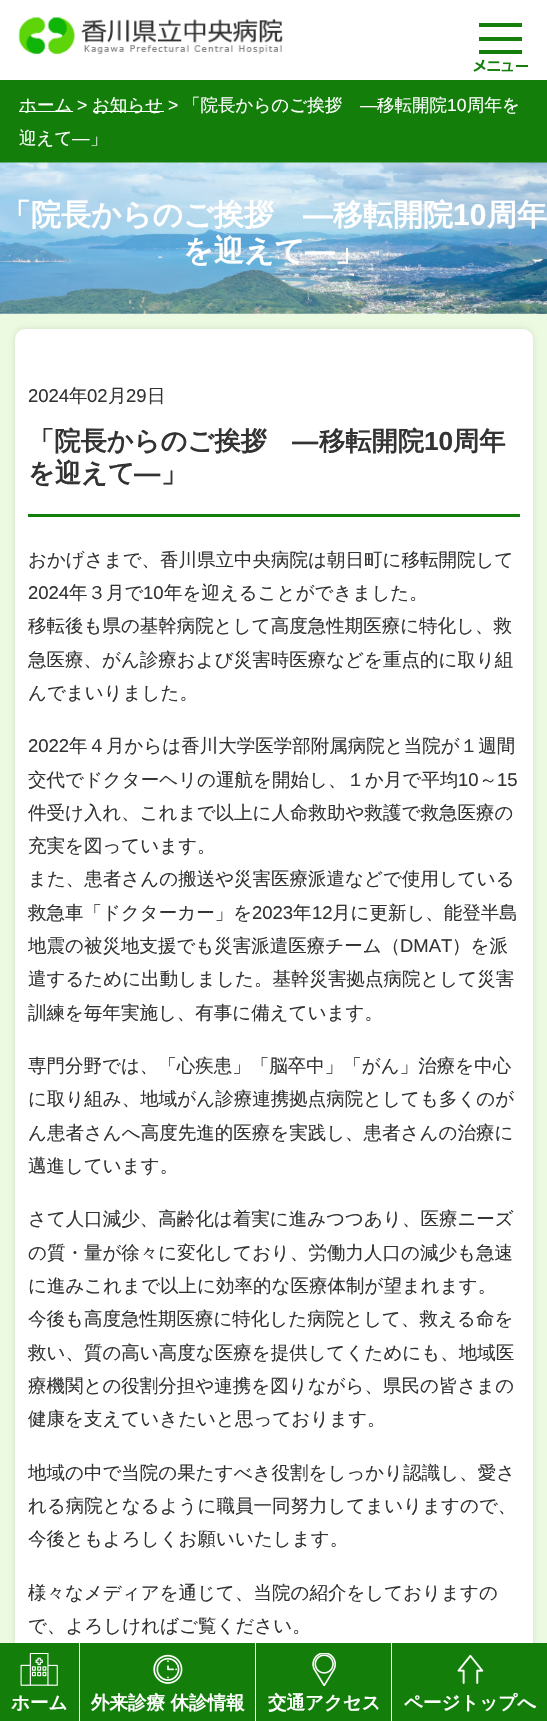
static SkFont makeFont(const char* family, int weight, float size, bool italic = false) {
  SkFontStyle style(weight, SkFontStyle::kNormal_Width,
    italic ? SkFontStyle::kItalic_Slant : SkFontStyle::kUpright_Slant);
  SkFont result(fontMgr->matchFamilyStyle(family, style), size);
  result.setSubpixel(true);
  return result;
}

static void text(SkCanvas* c, const char* s, float x, float y, const SkFont& font, SkColor color) {
  SkPaint ink(SkColor4f::FromColor(color));
  ink.setAntiAlias(true);
  c->drawString(s, x, y, font, ink);
}

static void box(SkCanvas* c, float l, float t, float r, float b, SkColor color) {
  SkPaint ink(SkColor4f::FromColor(color));
  ink.setAntiAlias(true);
  c->drawRect(SkRect::MakeLTRB(l, t, r, b), ink);
}

static void roundBox(SkCanvas* c, float l, float t, float r, float b, float radius, SkColor color) {
  SkPaint ink(SkColor4f::FromColor(color));
  ink.setAntiAlias(true);
  c->drawRoundRect(SkRect::MakeLTRB(l, t, r, b), radius, radius, ink);
}

static void picture(SkCanvas* c, const char* path, float l, float t, float r, float b) {
  auto image = SkImages::DeferredFromEncodedData(SkData::MakeFromFileName(path));
  c->drawImageRect(image, SkRect::MakeLTRB(l, t, r, b), SkSamplingOptions());
}

void draw(SkCanvas* c) {
  SkPaint paint;
  paint.setAntiAlias(true);
  c->clear(0xffffffff);
  picture(c, "img_01.png", 18, 17, 283, 54);
  picture(c, "img_02.png", 473, 23, 528, 72);
  box(c, 0, 80, 547, 163, 0xff137f0a);
  box(c, 19, 111, 73, 112, 0xffffffff);
  SkFont face1 = makeFont("WenQuanYi Zen Hei", 500, 17.5f);
  text(c, "ホーム", 19, 111, face1, 0xffffffff);
  SkFont face2 = makeFont("Liberation Sans", 400, 17.5f);
  text(c, ">", 77, 111, face2, 0xffffffff);
  box(c, 93, 111, 164, 112, 0xffffffff);
  text(c, "お知らせ", 92, 111, face1, 0xffffffff);
  text(c, ">", 168, 111, face2, 0xffffffff);
  text(c, "「院長からのご挨拶", 183, 111, face1, 0xffffffff);
  text(c, "―", 360, 111, face2, 0xffffffff);
  text(c, "移転開院", 377, 111, face1, 0xffffffff);
  text(c, "10", 447, 111, face2, 0xffffffff);
  text(c, "周年を", 467, 111, face1, 0xffffffff);
  text(c, "迎えて", 19, 144, face1, 0xffffffff);
  text(c, "―", 72, 144, face2, 0xffffffff);
  text(c, "」", 90, 144, face1, 0xffffffff);
  picture(c, "img_03.png", 0, 162, 547, 314);
  SkFont face3 = makeFont("WenQuanYi Zen Hei", 700, 30);
  text(c, "「院長からのご挨拶", 1, 225, face3, 0xffffffff);
  SkFont face4 = makeFont("Liberation Sans", 700, 30);
  text(c, "―", 303, 225, face4, 0xffffffff);
  text(c, "移転開院", 333, 225, face3, 0xffffffff);
  text(c, "10", 453, 225, face4, 0xffffffff);
  text(c, "周年", 487, 225, face3, 0xffffffff);
  text(c, "を迎えて", 183, 261, face3, 0xffffffff);
  text(c, "―", 305, 261, face4, 0xffffffff);
  text(c, "」", 335, 261, face3, 0xffffffff);
  box(c, 0, 314, 547, 1643, 0xffecfae1);
  paint.setColor(0x1a000000);
  paint.setMaskFilter(SkMaskFilter::MakeBlur(kNormal_SkBlurStyle, 3));
  c->drawRoundRect(SkRect::MakeLTRB(15, 329, 533, 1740), 10, 10, paint);
  paint.setMaskFilter(nullptr);
  roundBox(c, 15, 329, 533, 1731, 10, 0xffffffff);
  SkFont face5 = makeFont("Liberation Sans", 400, 18.5f);
  text(c, "2024", 28, 402, face5, 0xff333333);
  SkFont face6 = makeFont("WenQuanYi Zen Hei", 500, 18.5f);
  text(c, "年", 69, 402, face6, 0xff333333);
  text(c, "02", 87, 402, face5, 0xff333333);
  text(c, "月", 108, 402, face6, 0xff333333);
  text(c, "29", 126, 402, face5, 0xff333333);
  text(c, "日", 147, 402, face6, 0xff333333);
  box(c, 28, 514, 520, 517, 0xff137f0a);
  SkFont face7 = makeFont("WenQuanYi Zen Hei", 700, 26.25f);
  text(c, "「院長からのご挨拶", 28, 450, face7, 0xff333333);
  SkFont face8 = makeFont("Liberation Sans", 700, 26.25f);
  text(c, "―", 292, 450, face8, 0xff333333);
  text(c, "移転開院", 319, 450, face7, 0xff333333);
  text(c, "10", 424, 450, face8, 0xff333333);
  text(c, "周年", 453, 450, face7, 0xff333333);
  text(c, "を迎えて", 28, 482, face7, 0xff333333);
  text(c, "―", 134, 482, face8, 0xff333333);
  text(c, "」", 161, 482, face7, 0xff333333);
  text(c, "おかげさまで、香川県立中央病院は朝日町に移転開院して", 28, 566, face6, 0xff333333);
  text(c, "2024", 28, 599, face5, 0xff333333);
  text(c, "年３月で", 69, 599, face6, 0xff333333);
  text(c, "10", 143, 599, face5, 0xff333333);
  text(c, "年を迎えることができました。", 164, 599, face6, 0xff333333);
  text(c, "移転後も県の基幹病院として高度急性期医療に特化し、救", 28, 632, face6, 0xff333333);
  text(c, "急医療、がん診療および災害時医療などを重点的に取り組", 28, 666, face6, 0xff333333);
  text(c, "んでまいりました。", 28, 699, face6, 0xff333333);
  text(c, "2022", 28, 752, face5, 0xff333333);
  text(c, "年４月からは香川大学医学部附属病院と当院が１週間", 69, 752, face6, 0xff333333);
  text(c, "交代でドクターヘリの運航を開始し、１か月で平均", 28, 786, face6, 0xff333333);
  text(c, "10", 458, 786, face5, 0xff333333);
  text(c, "～", 479, 786, face6, 0xff333333);
  text(c, "15", 497, 786, face5, 0xff333333);
  text(c, "件受け入れ、これまで以上に人命救助や救護で救急医療の", 28, 819, face6, 0xff333333);
  text(c, "充実を図っています。", 28, 852, face6, 0xff333333);
  text(c, "また、患者さんの搬送や災害医療派遣などで使用している", 28, 885, face6, 0xff333333);
  text(c, "救急車「ドクターカー」を", 28, 919, face6, 0xff333333);
  text(c, "2023", 252, 919, face5, 0xff333333);
  text(c, "年", 293, 919, face6, 0xff333333);
  text(c, "12", 312, 919, face5, 0xff333333);
  text(c, "月に更新し、能登半島", 332, 919, face6, 0xff333333);
  text(c, "地震の被災地支援でも災害派遣医療チーム（", 28, 952, face6, 0xff333333);
  text(c, "DMAT", 400, 952, face5, 0xff333333);
  text(c, "）を派", 452, 952, face6, 0xff333333);
  text(c, "遣するために出動しました。基幹災害拠点病院として災害", 28, 985, face6, 0xff333333);
  text(c, "訓練を毎年実施し、有事に備えています。", 28, 1019, face6, 0xff333333);
  text(c, "専門分野では、「心疾患」「脳卒中」「がん」治療を中心", 28, 1072, face6, 0xff333333);
  text(c, "に取り組み、地域がん診療連携拠点病院としても多くのが", 28, 1105, face6, 0xff333333);
  text(c, "ん患者さんへ高度先進的医療を実践し、患者さんの治療に", 28, 1139, face6, 0xff333333);
  text(c, "邁進しています。", 28, 1172, face6, 0xff333333);
  text(c, "さて人口減少、高齢化は着実に進みつつあり、医療ニーズ", 28, 1225, face6, 0xff333333);
  text(c, "の質・量が徐々に変化しており、労働力人口の減少も急速", 28, 1259, face6, 0xff333333);
  text(c, "に進みこれまで以上に効率的な医療体制が望まれます。", 28, 1292, face6, 0xff333333);
  text(c, "今後も高度急性期医療に特化した病院として、救える命を", 28, 1325, face6, 0xff333333);
  text(c, "救い、質の高い高度な医療を提供してくためにも、地域医", 28, 1359, face6, 0xff333333);
  text(c, "療機関との役割分担や連携を図りながら、県民の皆さまの", 28, 1392, face6, 0xff333333);
  text(c, "健康を支えていきたいと思っております。", 28, 1425, face6, 0xff333333);
  text(c, "地域の中で当院の果たすべき役割をしっかり認識し、愛さ", 28, 1479, face6, 0xff333333);
  text(c, "れる病院となるように職員一同努力してまいりますので、", 28, 1512, face6, 0xff333333);
  text(c, "今後ともよろしくお願いいたします。", 28, 1545, face6, 0xff333333);
  text(c, "様々なメディアを通じて、当院の紹介をしておりますの", 28, 1599, face6, 0xff333333);
  text(c, "で、よろしければご覧ください。", 28, 1632, face6, 0xff333333);
  box(c, 0, 1643, 547, 1721, 0xff137f0a);
  picture(c, "img_04.png", 20, 1653, 58, 1686);
  SkFont face9 = makeFont("WenQuanYi Zen Hei", 700, 18.5f);
  text(c, "ホーム", 11, 1709, face9, 0xffffffff);
  box(c, 79, 1643, 80, 1721, 0xffffffff);
  picture(c, "img_05.png", 153, 1654, 183, 1684);
  text(c, "外来診療 休診情報", 91, 1709, face9, 0xffffffff);
  box(c, 255, 1643, 256, 1721, 0xffffffff);
  picture(c, "img_06.png", 312, 1653, 336, 1686);
  text(c, "交通アクセス", 268, 1709, face9, 0xffffffff);
  box(c, 391, 1643, 392, 1721, 0xffffffff);
  picture(c, "img_07.png", 457, 1654, 484, 1684);
  text(c, "ページトップへ", 404, 1709, face9, 0xffffffff);
}
